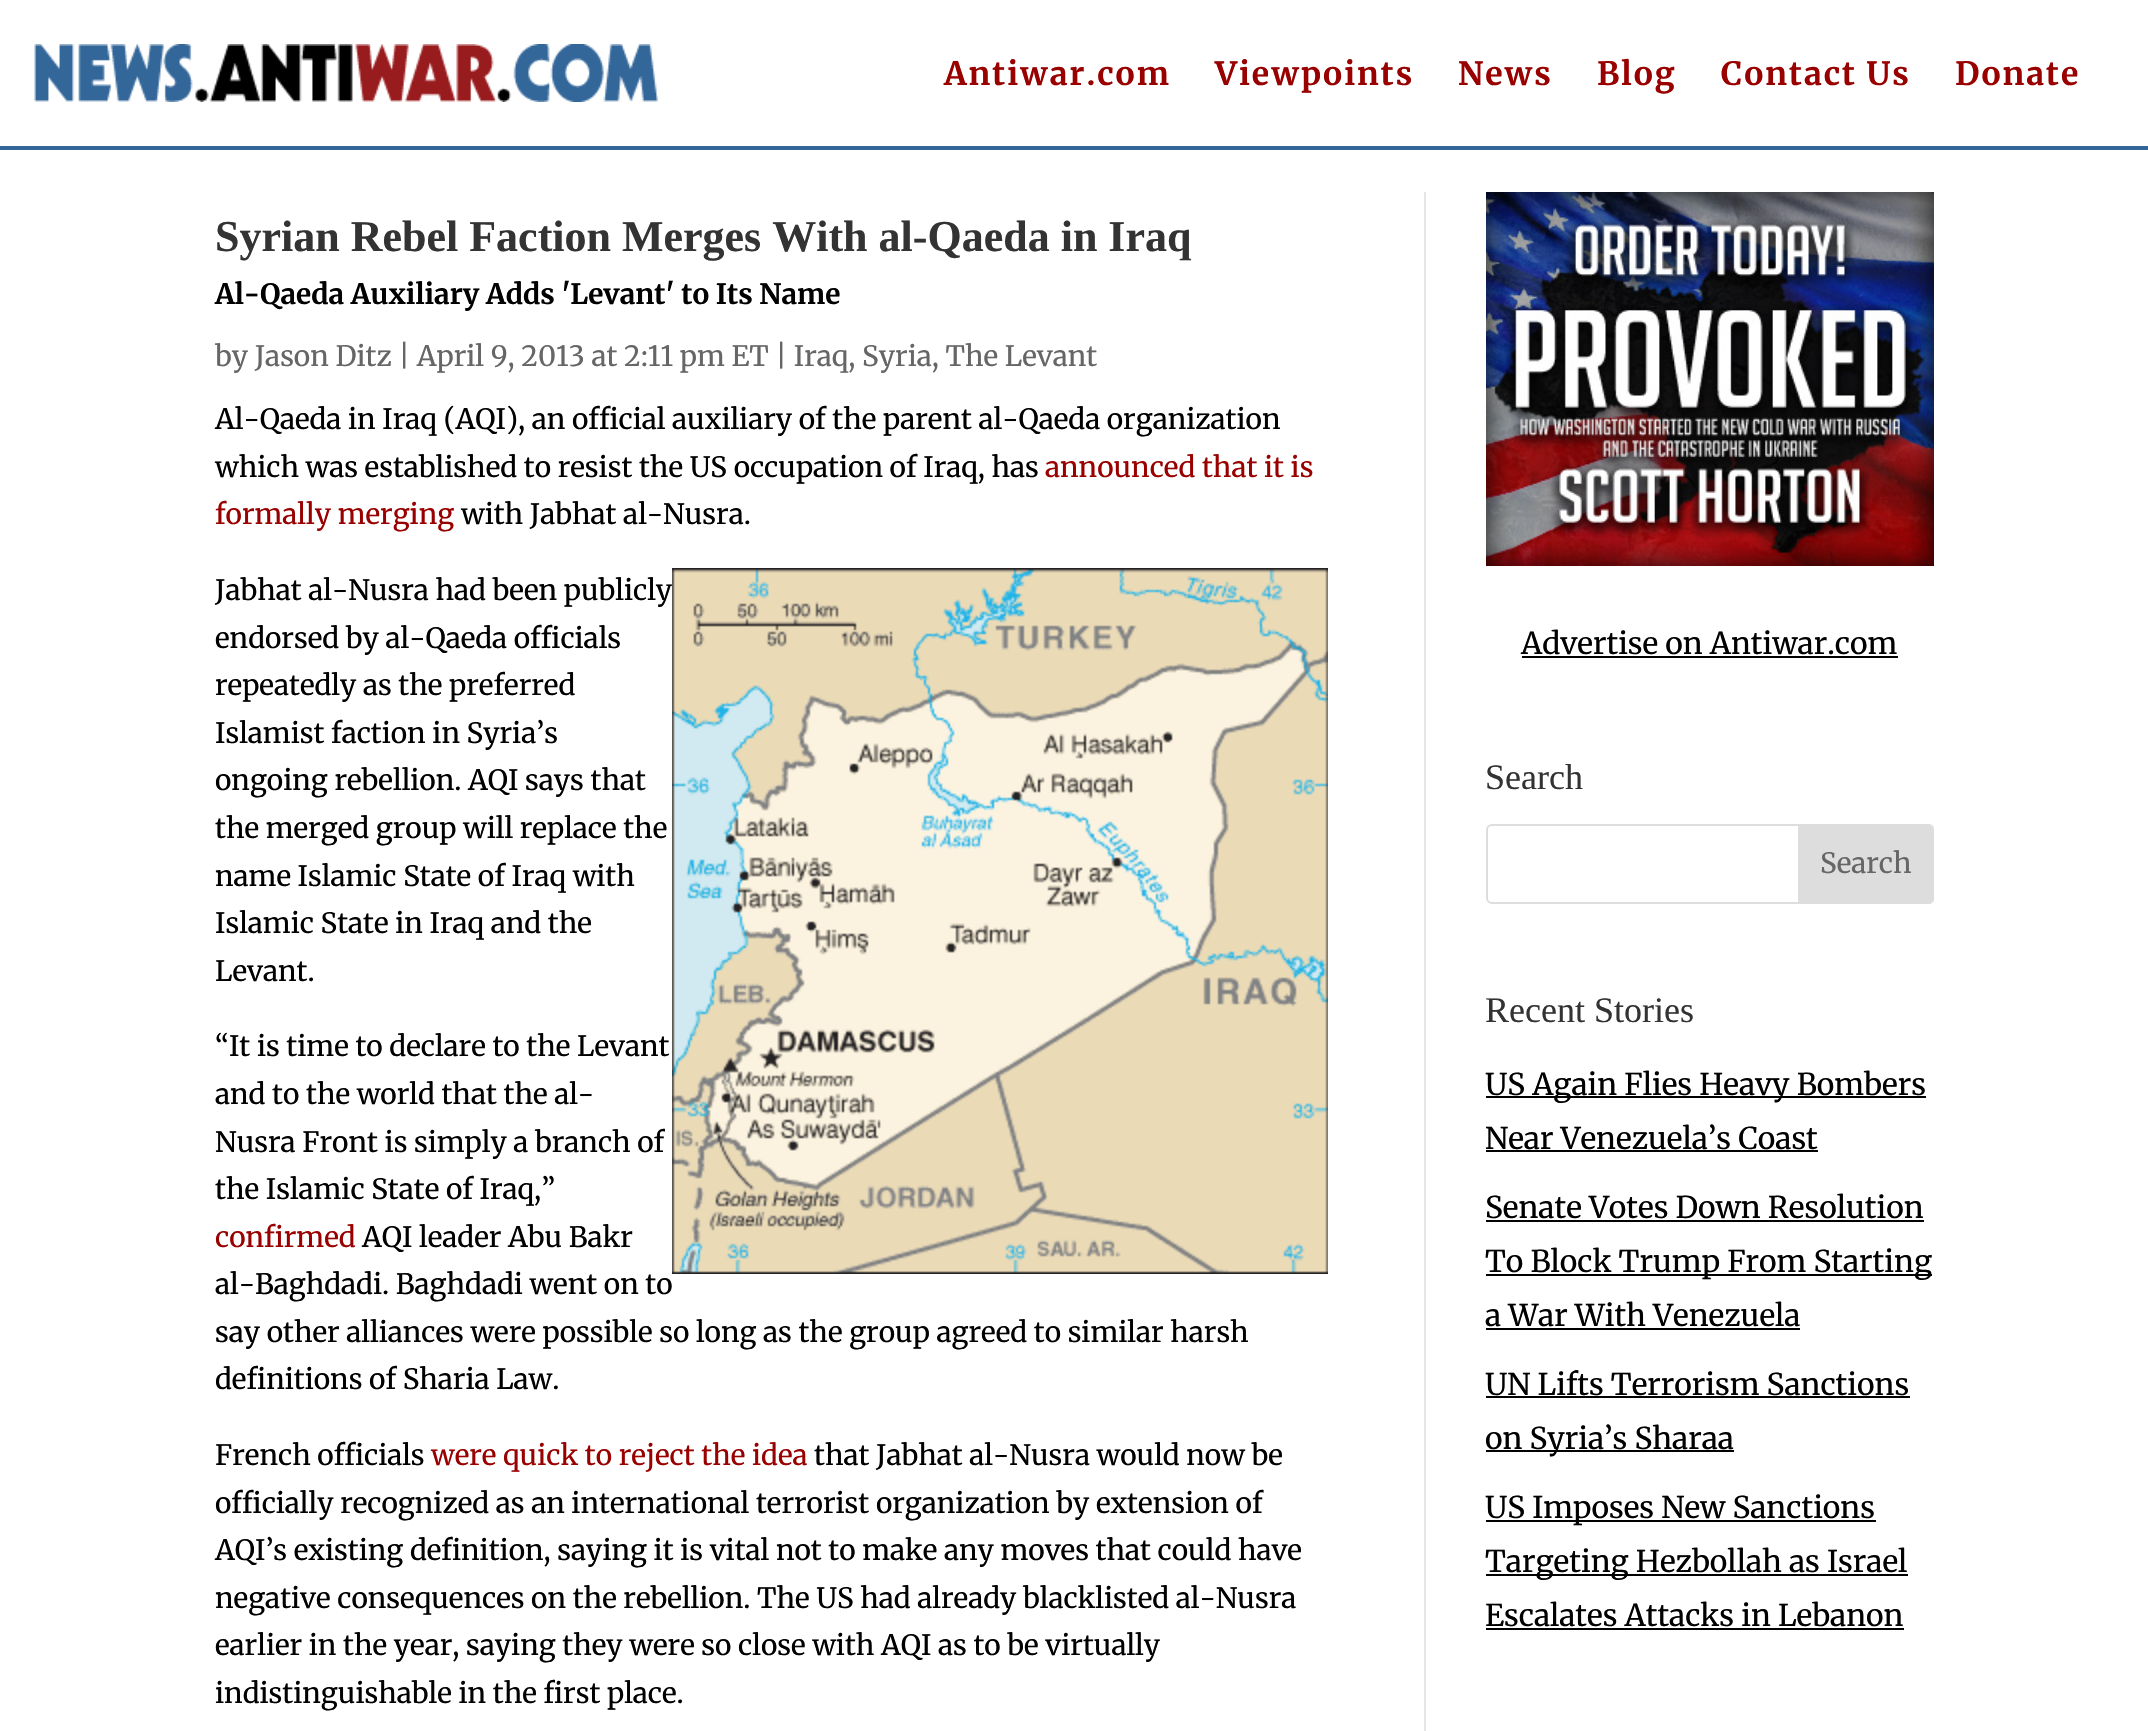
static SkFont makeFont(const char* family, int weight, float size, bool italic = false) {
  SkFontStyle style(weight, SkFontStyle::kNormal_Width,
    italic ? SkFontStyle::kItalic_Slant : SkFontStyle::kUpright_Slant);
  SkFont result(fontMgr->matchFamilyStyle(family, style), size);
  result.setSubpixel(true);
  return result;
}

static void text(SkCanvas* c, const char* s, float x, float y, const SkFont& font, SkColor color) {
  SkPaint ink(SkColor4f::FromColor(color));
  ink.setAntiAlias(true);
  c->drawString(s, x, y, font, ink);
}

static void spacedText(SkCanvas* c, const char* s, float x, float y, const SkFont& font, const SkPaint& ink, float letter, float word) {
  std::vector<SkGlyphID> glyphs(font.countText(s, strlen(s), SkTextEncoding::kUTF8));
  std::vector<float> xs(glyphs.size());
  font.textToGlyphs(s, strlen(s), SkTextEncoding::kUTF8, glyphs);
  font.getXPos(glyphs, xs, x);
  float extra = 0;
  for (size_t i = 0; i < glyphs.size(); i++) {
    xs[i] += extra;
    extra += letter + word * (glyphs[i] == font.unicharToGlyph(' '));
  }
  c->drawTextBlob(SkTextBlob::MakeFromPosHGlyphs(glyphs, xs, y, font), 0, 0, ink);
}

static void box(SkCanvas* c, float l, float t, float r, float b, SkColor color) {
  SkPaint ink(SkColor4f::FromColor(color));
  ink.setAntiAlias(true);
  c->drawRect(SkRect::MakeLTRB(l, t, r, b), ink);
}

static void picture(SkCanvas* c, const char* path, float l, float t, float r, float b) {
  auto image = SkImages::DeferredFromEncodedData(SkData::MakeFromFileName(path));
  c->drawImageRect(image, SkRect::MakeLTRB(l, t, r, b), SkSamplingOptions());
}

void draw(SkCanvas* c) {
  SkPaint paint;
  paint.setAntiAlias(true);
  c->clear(0xffffffff);
  box(c, 0, 146, 2148, 150, 0xff336699);
  picture(c, "img_01.png", 34, 44, 658, 102);
  SkFont face1 = makeFont("Merriweather", 300, 32);
  paint.setColor(0xff990000);
  spacedText(c, "Antiwar.com", 944, 85, face1, paint, 2, 0);
  spacedText(c, "Viewpoints", 1215, 85, face1, paint, 2, 0);
  spacedText(c, "News", 1458, 85, face1, paint, 2, 0);
  spacedText(c, "Blog", 1597, 85, face1, paint, 2, 0);
  spacedText(c, "Contact Us", 1721, 85, face1, paint, 2, 0);
  spacedText(c, "Donate", 1955, 85, face1, paint, 2, 0);
  SkFont face2 = makeFont("Liberation Serif", 700, 44);
  text(c, "Syrian Rebel Faction Merges With al-Qaeda in Iraq", 215, 251, face2, 0xff333333);
  SkFont face3 = makeFont("Merriweather", 300, 28);
  text(c, "Al-Qaeda Auxiliary Adds 'Levant' to Its Name", 215, 304, face3, 0xff000000);
  SkFont face4 = makeFont("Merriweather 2", 300, 28);
  text(c, "by Jason Ditz | April 9, 2013 at 2:11 pm ET | Iraq, Syria, The Levant", 215, 366, face4, 0xff666666);
  text(c, "Al-Qaeda in Iraq (AQI), an official auxiliary of the parent al-Qaeda organization", 215, 429, face4, 0xff000000);
  text(c, "which was established to resist the US occupation of Iraq, has", 215, 477, face4, 0xff000000);
  text(c, "announced that it is", 1045, 477, face4, 0xff990000);
  text(c, "formally merging", 215, 524, face4, 0xff990000);
  text(c, "with Jabhat al-Nusra.", 461, 524, face4, 0xff000000);
  text(c, "Jabhat al-Nusra had been publicly", 215, 600, face4, 0xff000000);
  picture(c, "img_02.png", 672, 568, 1328, 1274);
  text(c, "endorsed by al-Qaeda officials", 215, 648, face4, 0xff000000);
  text(c, "repeatedly as the preferred", 215, 695, face4, 0xff000000);
  text(c, "Islamist faction in Syria’s", 215, 743, face4, 0xff000000);
  text(c, "ongoing rebellion. AQI says that", 215, 790, face4, 0xff000000);
  text(c, "the merged group will replace the", 215, 838, face4, 0xff000000);
  text(c, "name Islamic State of Iraq with", 215, 886, face4, 0xff000000);
  text(c, "Islamic State in Iraq and the", 215, 933, face4, 0xff000000);
  text(c, "Levant.", 215, 981, face4, 0xff000000);
  text(c, "“It is time to declare to the Levant", 215, 1056, face4, 0xff000000);
  text(c, "and to the world that the al-", 215, 1104, face4, 0xff000000);
  text(c, "Nusra Front is simply a branch of", 215, 1152, face4, 0xff000000);
  text(c, "the Islamic State of Iraq,”", 215, 1199, face4, 0xff000000);
  text(c, "confirmed", 215, 1247, face4, 0xff990000);
  text(c, "AQI leader Abu Bakr", 362, 1247, face4, 0xff000000);
  text(c, "al-Baghdadi. Baghdadi went on to", 215, 1294, face4, 0xff000000);
  text(c, "say other alliances were possible so long as the group agreed to similar harsh", 215, 1342, face4, 0xff000000);
  text(c, "definitions of Sharia Law.", 215, 1389, face4, 0xff000000);
  text(c, "French officials", 215, 1465, face4, 0xff000000);
  text(c, "were quick to reject the idea", 431, 1465, face4, 0xff990000);
  text(c, "that Jabhat al-Nusra would now be", 814, 1465, face4, 0xff000000);
  text(c, "officially recognized as an international terrorist organization by extension of", 215, 1513, face4, 0xff000000);
  text(c, "AQI’s existing definition, saying it is vital not to make any moves that could have", 215, 1560, face4, 0xff000000);
  text(c, "negative consequences on the rebellion. The US had already blacklisted al-Nusra", 215, 1608, face4, 0xff000000);
  text(c, "earlier in the year, saying they were so close with AQI as to be virtually", 215, 1655, face4, 0xff000000);
  text(c, "indistinguishable in the first place.", 215, 1703, face4, 0xff000000);
  box(c, 1424, 192, 1426, 1731, 0xffe6e6e6);
  picture(c, "img_03.png", 1486, 192, 1934, 566);
  SkFont face5 = makeFont("Merriweather 2", 300, 30);
  text(c, "Advertise on Antiwar.com", 1521, 654, face5, 0xff000000);
  box(c, 1522, 656, 1898, 658, 0xff000000);
  SkFont face6 = makeFont("Liberation Serif", 400, 36);
  text(c, "Search", 1485, 789, face6, 0xff333333);
  paint.setStyle(SkPaint::kStroke_Style);
  paint.setStrokeWidth(2);
  paint.setColor(0xffdddddd);
  c->drawRoundRect(SkRect::MakeLTRB(1487, 825, 1933, 903), 5, 5, paint);
  paint.setStyle(SkPaint::kFill_Style);
  c->drawPath(SkPathBuilder().moveTo(1799, 825).lineTo(1928, 825).cubicTo(1931, 825, 1933, 827, 1933, 830).lineTo(1933, 898).cubicTo(1933, 901, 1931, 903, 1928, 903).lineTo(1799, 903).close().detach(), paint);
  paint.setStyle(SkPaint::kStroke_Style);
  c->drawPath(SkPathBuilder().moveTo(1799, 825).lineTo(1928, 825).cubicTo(1931, 825, 1933, 827, 1933, 830).lineTo(1933, 898).cubicTo(1933, 901, 1931, 903, 1928, 903).lineTo(1799, 903).close().detach(), paint);
  text(c, "Search", 1820, 873, face4, 0xff666666);
  text(c, "Recent Stories", 1485, 1022, face6, 0xff333333);
  box(c, 1486, 1096, 1926, 1098, 0xff000000);
  text(c, "US Again Flies Heavy Bombers", 1485, 1095, face5, 0xff000000);
  text(c, "Near Venezuela’s Coast", 1485, 1149, face5, 0xff000000);
  box(c, 1486, 1150, 1818, 1152, 0xff000000);
  text(c, "Senate Votes Down Resolution", 1485, 1218, face5, 0xff000000);
  box(c, 1486, 1220, 1924, 1222, 0xff000000);
  box(c, 1486, 1274, 1932, 1276, 0xff000000);
  text(c, "To Block Trump From Starting", 1485, 1272, face5, 0xff000000);
  text(c, "a War With Venezuela", 1485, 1326, face5, 0xff000000);
  box(c, 1486, 1328, 1800, 1330, 0xff000000);
  text(c, "UN Lifts Terrorism Sanctions", 1485, 1395, face5, 0xff000000);
  box(c, 1486, 1396, 1910, 1398, 0xff000000);
  box(c, 1486, 1450, 1734, 1452, 0xff000000);
  text(c, "on Syria’s Sharaa", 1485, 1449, face5, 0xff000000);
  box(c, 1486, 1520, 1876, 1522, 0xff000000);
  text(c, "US Imposes New Sanctions", 1485, 1518, face5, 0xff000000);
  box(c, 1486, 1574, 1908, 1576, 0xff000000);
  text(c, "Targeting Hezbollah as Israel", 1485, 1572, face5, 0xff000000);
  text(c, "Escalates Attacks in Lebanon", 1485, 1626, face5, 0xff000000);
  box(c, 1486, 1628, 1904, 1630, 0xff000000);
}
